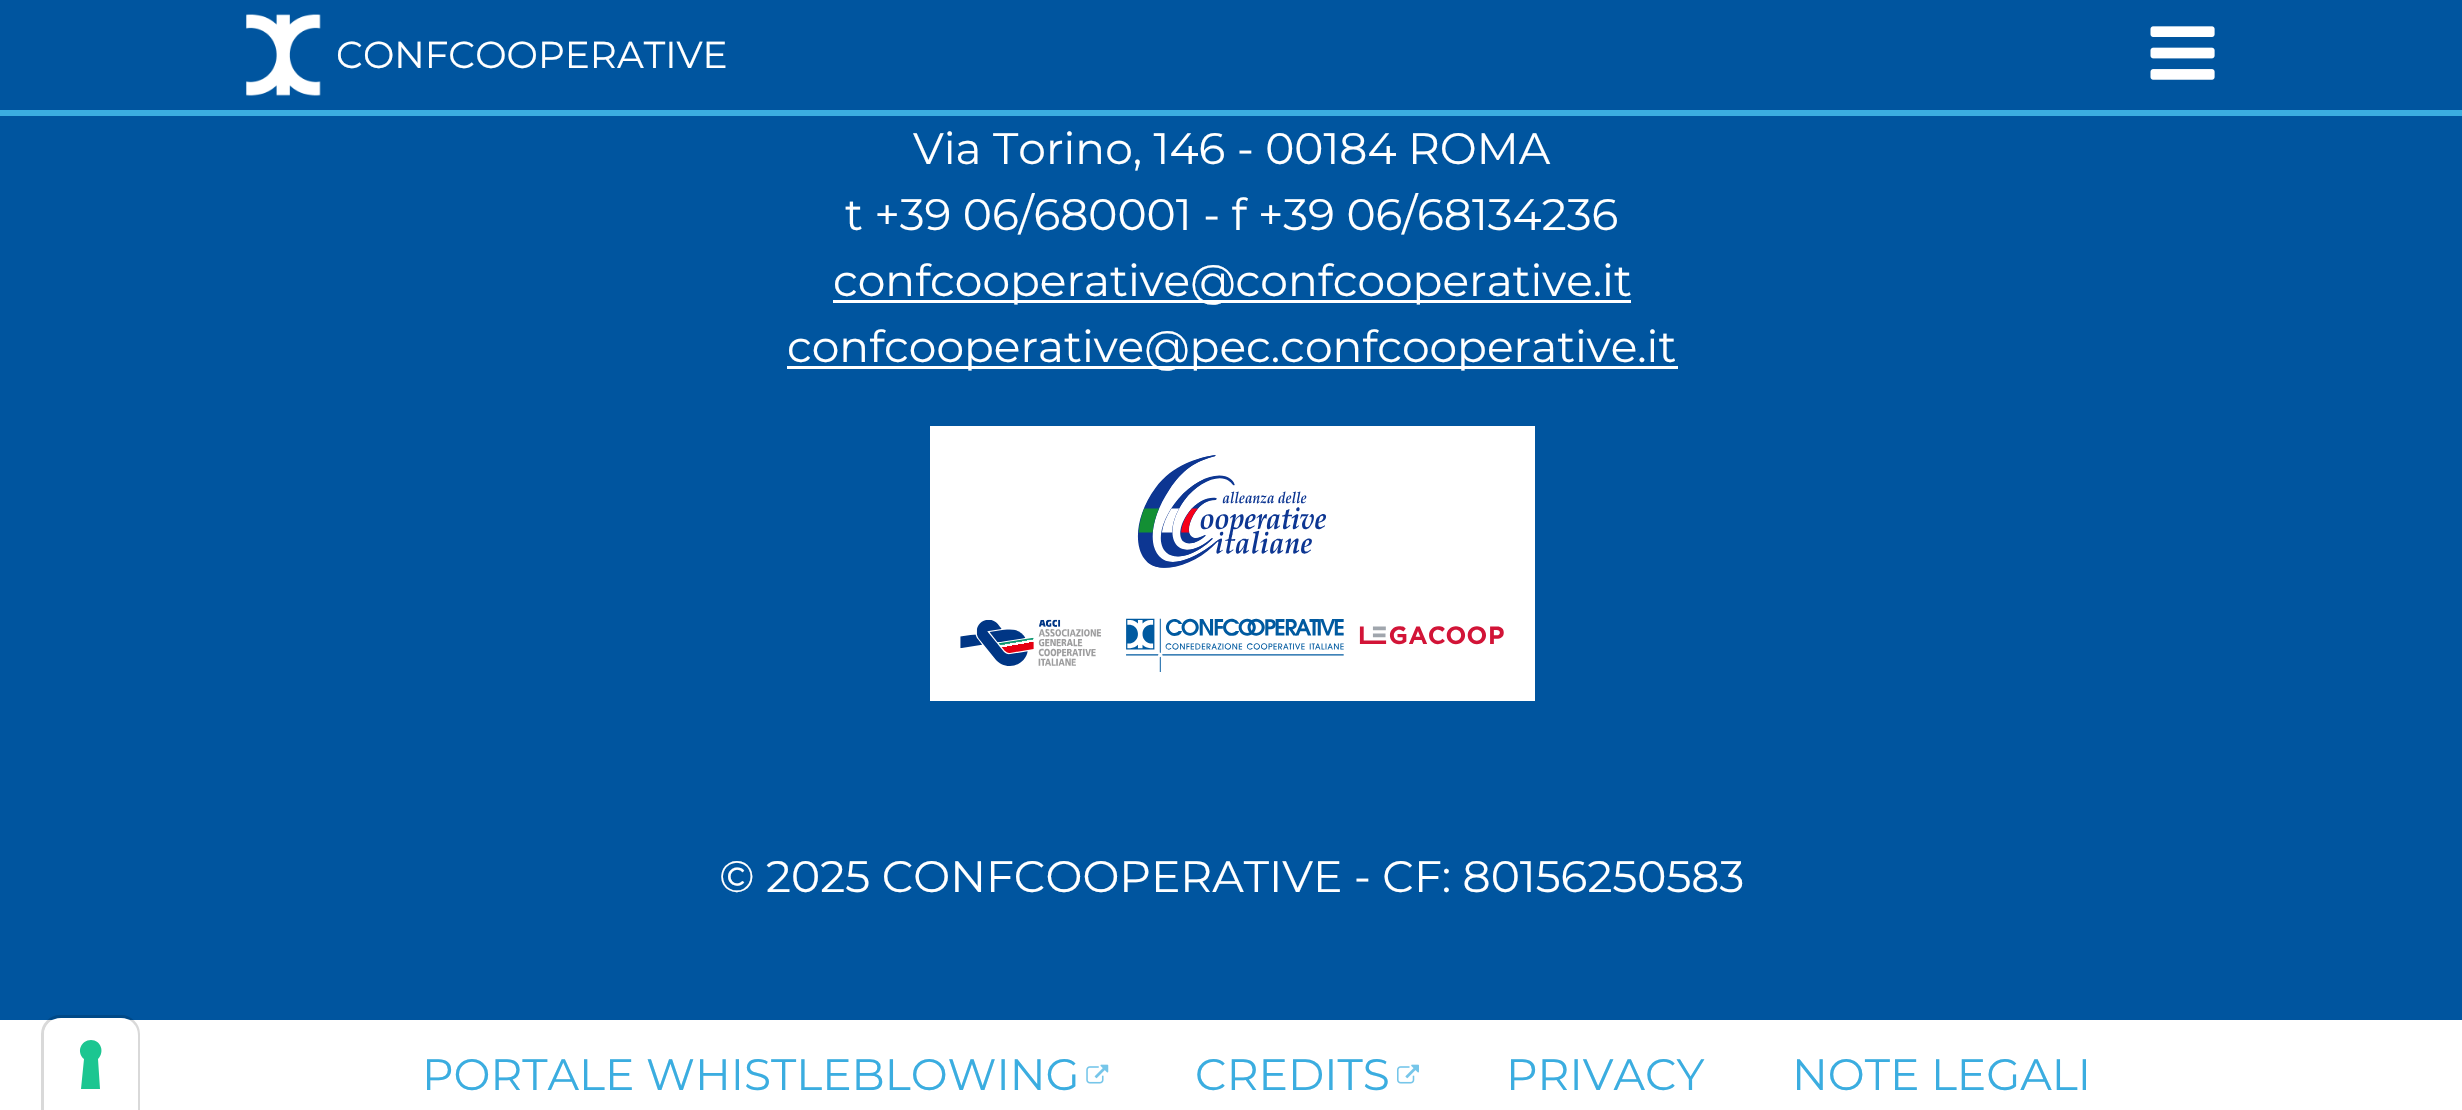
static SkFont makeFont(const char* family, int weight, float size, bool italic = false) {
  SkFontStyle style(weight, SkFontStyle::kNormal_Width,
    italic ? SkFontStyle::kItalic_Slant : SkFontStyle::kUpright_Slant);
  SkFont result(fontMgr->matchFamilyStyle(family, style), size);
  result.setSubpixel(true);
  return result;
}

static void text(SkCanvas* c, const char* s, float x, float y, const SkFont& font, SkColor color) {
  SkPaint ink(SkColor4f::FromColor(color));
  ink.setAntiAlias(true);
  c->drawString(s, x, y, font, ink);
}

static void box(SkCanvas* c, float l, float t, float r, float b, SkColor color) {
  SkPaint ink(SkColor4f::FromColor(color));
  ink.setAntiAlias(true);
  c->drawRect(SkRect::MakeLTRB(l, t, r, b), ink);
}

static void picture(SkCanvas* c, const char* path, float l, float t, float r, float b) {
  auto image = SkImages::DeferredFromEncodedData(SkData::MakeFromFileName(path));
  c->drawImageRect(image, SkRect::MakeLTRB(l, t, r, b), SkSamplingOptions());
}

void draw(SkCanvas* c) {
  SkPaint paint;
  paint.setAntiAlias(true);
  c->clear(0xffffffff);
  box(c, 0, 116, 2462, 1020, 0xff00559f);
  paint.setStyle(SkPaint::kStroke_Style);
  paint.setStrokeWidth(3);
  paint.setColor(0x26000000);
  c->drawPath(SkPathBuilder().moveTo(60, 1016.5f).lineTo(121, 1016.5f).cubicTo(130.5f, 1016.5f, 138.5f, 1024.5f, 138.5f, 1034).lineTo(138.5f, 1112.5f).lineTo(42.5f, 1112.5f).lineTo(42.5f, 1034).cubicTo(42.5f, 1024.5f, 50.5f, 1016.5f, 60, 1016.5f).close().detach(), paint);
  paint.setStyle(SkPaint::kFill_Style);
  paint.setColor(0xffffffff);
  c->drawPath(SkPathBuilder().moveTo(61, 1018).lineTo(121, 1018).cubicTo(130.5f, 1018, 138, 1025.5f, 138, 1035).lineTo(138, 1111).lineTo(44, 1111).lineTo(44, 1035).cubicTo(44, 1025.5f, 51.5f, 1018, 61, 1018).close().detach(), paint);
  paint.setColor(0xff1cc691);
  c->drawPath(SkPathBuilder(SkPathFillType::kEvenOdd).moveTo(91, 1040).cubicTo(101, 1040, 105, 1052, 98, 1059).lineTo(100, 1089).lineTo(81, 1089).lineTo(84, 1059).cubicTo(76, 1052, 81, 1040, 91, 1040).close().detach(), paint);
  box(c, 0, 0, 2462, 110, 0xff00559f);
  box(c, 0, 110, 2462, 116, 0xff3bade0);
  picture(c, "img_01.png", 246, 14, 321, 96);
  SkFont face1 = makeFont("Montserrat", 400, 37.4f);
  text(c, "CONFCOOPERATIVE", 336, 68, face1, 0xffffffff);
  picture(c, "img_02.png", 2150, 26, 2215, 80);
  SkFont face2 = makeFont("Montserrat", 400, 44);
  text(c, "Via Torino, 146 - 00184 ROMA", 913, 164, face2, 0xffffffff);
  text(c, "t +39 06/680001 - f +39 06/68134236", 845, 230, face2, 0xffffffff);
  box(c, 833, 300, 1631, 303, 0xffffffff);
  text(c, "confcooperative@confcooperative.it", 833, 296, face2, 0xffffffff);
  box(c, 787, 366, 1678, 369, 0xffffffff);
  text(c, "confcooperative@pec.confcooperative.it", 787, 362, face2, 0xffffffff);
  box(c, 930, 426, 1535, 701, 0xffffffff);
  picture(c, "img_03.png", 960, 455, 1504, 672);
  text(c, "© 2025 CONFCOOPERATIVE - CF: 80156250583", 719, 892, face2, 0xffffffff);
  text(c, "PORTALE WHISTLEBLOWING", 422, 1090, face2, 0xff3bade0);
  picture(c, "img_04.png", 1086, 1064, 1109, 1084);
  text(c, "CREDITS", 1195, 1090, face2, 0xff3bade0);
  picture(c, "img_05.png", 1397, 1064, 1419, 1084);
  text(c, "PRIVACY", 1506, 1090, face2, 0xff3bade0);
  text(c, "NOTE LEGALI", 1792, 1090, face2, 0xff3bade0);
}
